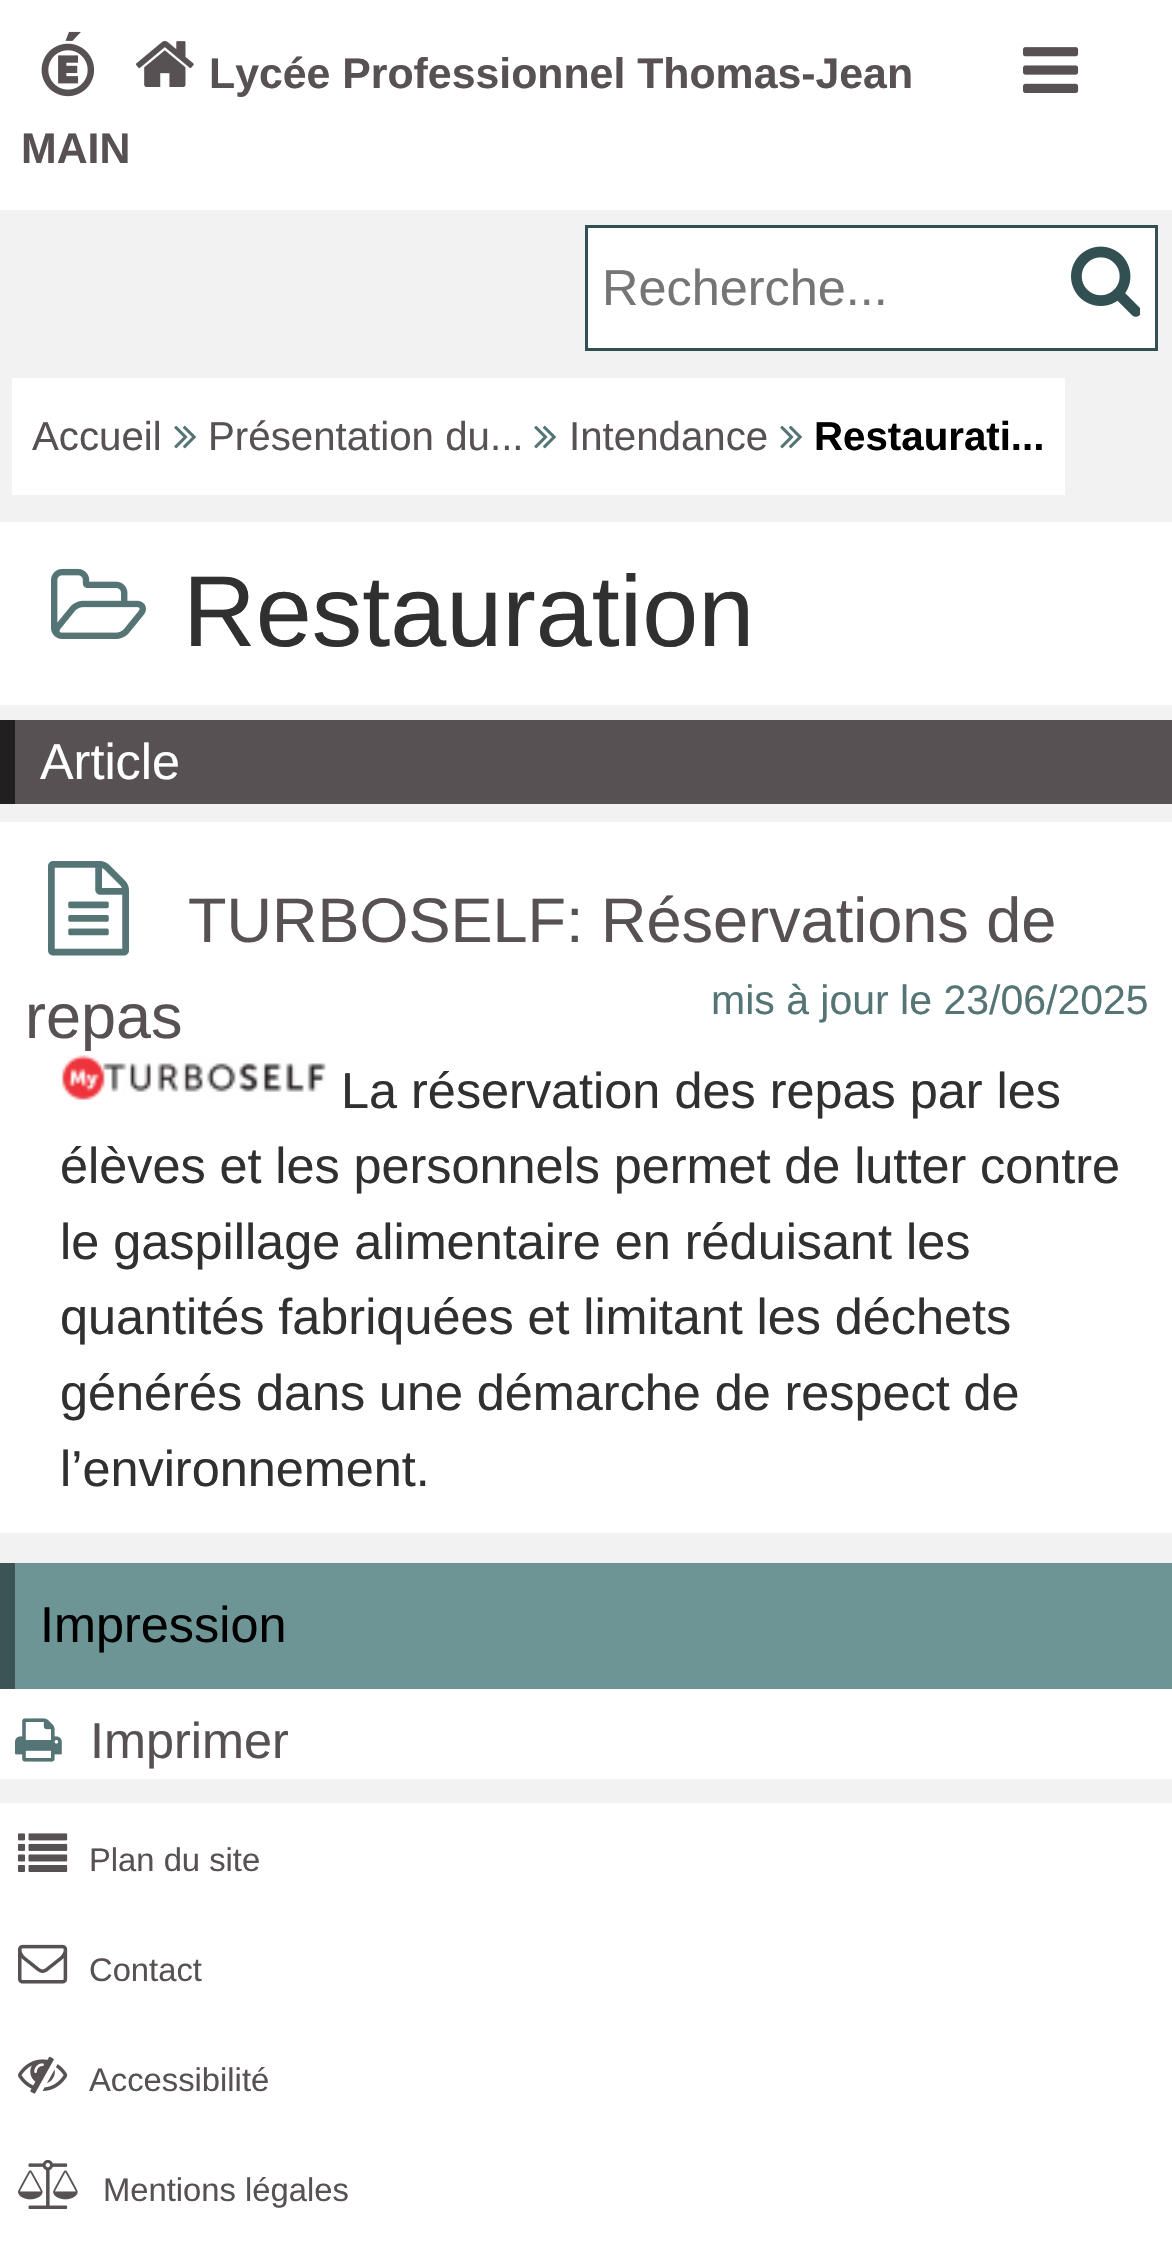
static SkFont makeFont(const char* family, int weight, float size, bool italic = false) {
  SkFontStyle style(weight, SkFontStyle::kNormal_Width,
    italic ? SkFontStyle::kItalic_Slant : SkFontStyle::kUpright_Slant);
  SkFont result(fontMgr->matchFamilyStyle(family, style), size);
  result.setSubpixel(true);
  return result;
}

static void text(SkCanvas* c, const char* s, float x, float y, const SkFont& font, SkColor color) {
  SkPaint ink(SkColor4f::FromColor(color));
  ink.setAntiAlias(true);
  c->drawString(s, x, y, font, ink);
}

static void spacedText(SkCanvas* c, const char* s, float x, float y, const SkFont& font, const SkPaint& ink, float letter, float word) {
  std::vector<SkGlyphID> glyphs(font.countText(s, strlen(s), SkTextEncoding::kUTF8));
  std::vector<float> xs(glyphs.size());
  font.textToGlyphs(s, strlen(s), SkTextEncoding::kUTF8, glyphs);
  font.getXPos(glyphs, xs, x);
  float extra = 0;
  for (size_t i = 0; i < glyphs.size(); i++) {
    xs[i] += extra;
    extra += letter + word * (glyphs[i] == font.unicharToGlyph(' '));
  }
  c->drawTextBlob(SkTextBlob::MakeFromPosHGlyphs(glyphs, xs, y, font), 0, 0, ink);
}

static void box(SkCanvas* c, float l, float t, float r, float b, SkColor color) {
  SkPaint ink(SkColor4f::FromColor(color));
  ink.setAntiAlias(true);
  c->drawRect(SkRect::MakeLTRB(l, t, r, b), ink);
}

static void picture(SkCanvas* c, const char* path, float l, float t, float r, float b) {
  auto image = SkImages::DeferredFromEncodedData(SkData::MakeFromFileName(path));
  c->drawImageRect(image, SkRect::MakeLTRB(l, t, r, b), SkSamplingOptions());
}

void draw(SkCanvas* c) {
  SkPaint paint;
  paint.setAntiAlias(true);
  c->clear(0xfff3f2f2);
  box(c, 0, 0, 1172, 210, 0xffffffff);
  picture(c, "img_01.png", 41, 31, 95, 97);
  picture(c, "img_02.png", 1023, 47, 1079, 93);
  picture(c, "img_03.png", 135, 41, 194, 87);
  SkFont face1 = makeFont("Liberation Sans", 700, 42.8f);
  text(c, "Lycée Professionnel Thomas-Jean", 209, 88, face1, 0xff575153);
  text(c, "MAIN", 21, 163, face1, 0xff575153);
  paint.setColor(0xffffffff);
  c->drawRect(SkRect::MakeLTRB(586.5f, 226.5f, 1156.5f, 349.5f), paint);
  paint.setStyle(SkPaint::kStroke_Style);
  paint.setStrokeWidth(3);
  paint.setColor(0xff325052);
  c->drawRect(SkRect::MakeLTRB(586.5f, 226.5f, 1156.5f, 349.5f), paint);
  SkFont face2 = makeFont("Liberation Sans", 400, 50.4f);
  text(c, "Recherche...", 602, 305, face2, 0xff757575);
  picture(c, "img_04.png", 1071, 246, 1140, 317);
  box(c, 12, 378, 1065, 495, 0xffffffff);
  SkFont face3 = makeFont("Liberation Sans", 400, 40.25f);
  text(c, "Accueil", 32, 450, face3, 0xff575153);
  picture(c, "img_05.png", 174, 425, 196, 449);
  text(c, "Présentation du...", 208, 450, face3, 0xff575153);
  picture(c, "img_05.png", 534, 425, 556, 449);
  text(c, "Intendance", 569, 450, face3, 0xff575153);
  picture(c, "img_05.png", 780, 425, 802, 449);
  SkFont face4 = makeFont("Liberation Sans", 700, 40.25f);
  text(c, "Restaurati...", 814, 450, face4, 0xff000000);
  box(c, 0, 522, 1172, 705, 0xffffffff);
  picture(c, "img_06.png", 51, 568, 146, 639);
  SkFont face5 = makeFont("Liberation Sans", 400, 100.75f);
  text(c, "Restauration", 183, 646, face5, 0xff303030);
  box(c, 15, 720, 1172, 804, 0xff575153);
  box(c, 0, 720, 15, 804, 0xff211f1f);
  text(c, "Article", 40, 779, face2, 0xffffffff);
  box(c, 0, 822, 1172, 1533, 0xffffffff);
  picture(c, "img_07.png", 48, 861, 129, 956);
  SkFont face6 = makeFont("Liberation Sans", 400, 63);
  text(c, "TURBOSELF: Réservations de", 188, 942, face6, 0xff575153);
  text(c, "repas", 25, 1038, face6, 0xff575153);
  SkFont face7 = makeFont("Liberation Sans", 400, 41);
  text(c, "mis à jour le 23/06/2025", 711, 1014, face7, 0xff557475);
  picture(c, "img_08.png", 60, 1055, 326, 1100);
  text(c, "La réservation des repas par les", 341, 1108, face2, 0xff303030);
  paint.setStyle(SkPaint::kFill_Style);
  paint.setColor(0xff303030);
  spacedText(c, "élèves et les personnels permet de lutter contre", 60, 1183, face2, paint, 0, -0.25f);
  text(c, "le gaspillage alimentaire en réduisant les", 60, 1259, face2, 0xff303030);
  spacedText(c, "quantités fabriquées et limitant les déchets", 60, 1334, face2, paint, 0, -0.25f);
  spacedText(c, "générés dans une démarche de respect de", 60, 1410, face2, paint, 0, -0.25f);
  text(c, "l’environnement.", 60, 1486, face2, 0xff303030);
  box(c, 0, 1689, 1172, 1779, 0xffffffff);
  box(c, 15, 1563, 1172, 1689, 0xff6e9596);
  box(c, 0, 1563, 15, 1689, 0xff3d5454);
  text(c, "Impression", 40, 1642, face2, 0xff000000);
  picture(c, "img_09.png", 15, 1718, 62, 1762);
  text(c, "Imprimer", 90, 1758, face2, 0xff575153);
  box(c, 0, 1803, 1172, 2260, 0xffffffff);
  picture(c, "img_10.png", 18, 1833, 68, 1872);
  SkFont face8 = makeFont("Liberation Sans", 400, 32.75f);
  text(c, "Plan du site", 89, 1871, face8, 0xff575153);
  picture(c, "img_11.png", 18, 1944, 68, 1984);
  text(c, "Contact", 89, 1981, face8, 0xff575153);
  picture(c, "img_12.png", 18, 2056, 68, 2094);
  text(c, "Accessibilité", 89, 2091, face8, 0xff575153);
  picture(c, "img_13.png", 18, 2159, 78, 2209);
  text(c, "Mentions légales", 103, 2201, face8, 0xff575153);
}
